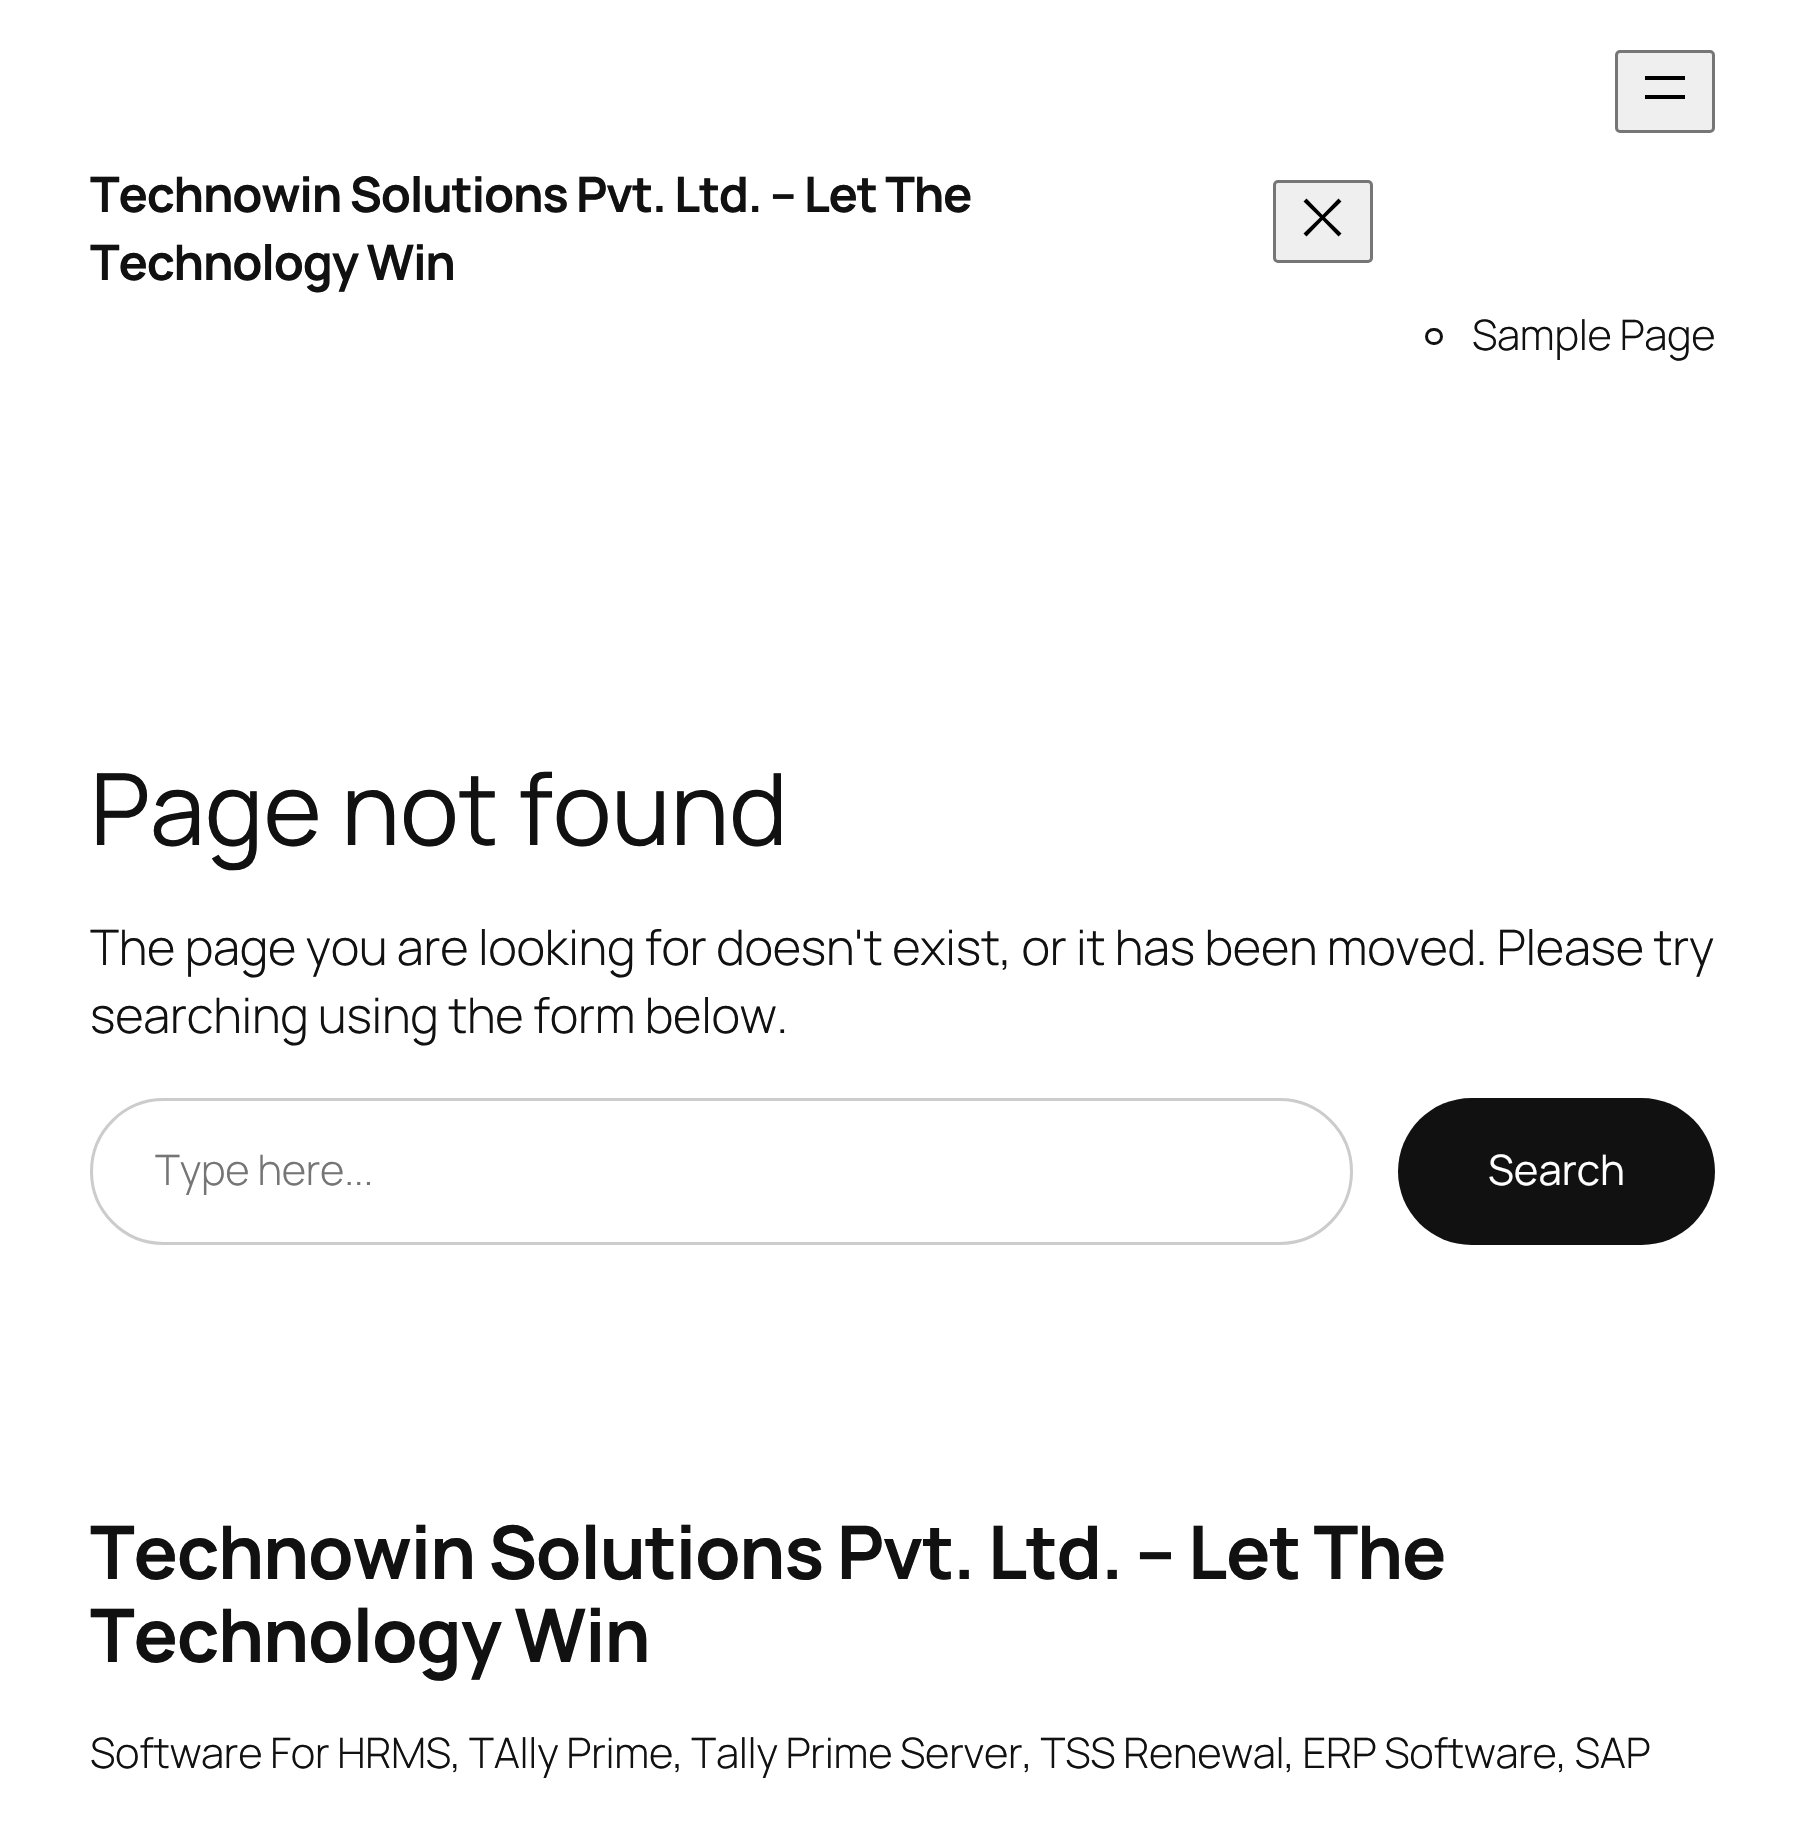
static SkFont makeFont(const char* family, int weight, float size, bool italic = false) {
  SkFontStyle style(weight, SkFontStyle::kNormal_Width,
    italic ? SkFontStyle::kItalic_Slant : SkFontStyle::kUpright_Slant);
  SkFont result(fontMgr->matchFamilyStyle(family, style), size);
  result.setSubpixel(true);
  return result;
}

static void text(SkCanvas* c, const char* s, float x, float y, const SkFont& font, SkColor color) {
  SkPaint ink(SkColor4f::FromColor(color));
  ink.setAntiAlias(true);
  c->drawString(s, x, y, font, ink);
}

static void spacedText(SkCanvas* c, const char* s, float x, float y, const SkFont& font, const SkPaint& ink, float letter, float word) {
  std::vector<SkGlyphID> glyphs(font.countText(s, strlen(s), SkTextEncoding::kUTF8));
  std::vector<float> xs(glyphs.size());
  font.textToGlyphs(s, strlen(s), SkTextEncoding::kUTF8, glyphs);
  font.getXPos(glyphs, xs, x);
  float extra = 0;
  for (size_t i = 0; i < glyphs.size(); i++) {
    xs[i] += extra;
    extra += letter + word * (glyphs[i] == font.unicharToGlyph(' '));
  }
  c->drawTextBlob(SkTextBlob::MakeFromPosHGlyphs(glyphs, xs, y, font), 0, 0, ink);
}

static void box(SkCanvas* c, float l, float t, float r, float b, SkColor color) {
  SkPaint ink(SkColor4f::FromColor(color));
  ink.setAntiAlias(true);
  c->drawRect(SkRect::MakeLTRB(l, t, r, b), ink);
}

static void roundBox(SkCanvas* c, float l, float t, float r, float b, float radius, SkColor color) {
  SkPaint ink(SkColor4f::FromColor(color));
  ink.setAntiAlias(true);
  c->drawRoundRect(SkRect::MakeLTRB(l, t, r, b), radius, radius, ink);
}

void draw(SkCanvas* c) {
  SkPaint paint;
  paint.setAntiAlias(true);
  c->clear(0xffffffff);
  SkFont face1 = makeFont("Manrope", 700, 48.95f);
  paint.setColor(0xff111111);
  spacedText(c, "Technowin Solutions Pvt. Ltd. – Let The", 90, 212, face1, paint, -1.25f, 0);
  spacedText(c, "Technology Win", 90, 280, face1, paint, -1.25f, 0);
  paint.setColor(0xffefefef);
  c->drawRoundRect(SkRect::MakeLTRB(1616.5f, 51.5f, 1713.5f, 131.5f), 3.5f, 3.5f, paint);
  paint.setStyle(SkPaint::kStroke_Style);
  paint.setStrokeWidth(3);
  paint.setColor(0xff767676);
  c->drawRoundRect(SkRect::MakeLTRB(1616.5f, 51.5f, 1713.5f, 131.5f), 3.5f, 3.5f, paint);
  box(c, 1645, 76, 1685, 80, 0xff000000);
  box(c, 1645, 95, 1685, 99, 0xff000000);
  paint.setStyle(SkPaint::kFill_Style);
  paint.setColor(0xffefefef);
  c->drawRoundRect(SkRect::MakeLTRB(1274.5f, 181.5f, 1371.5f, 261.5f), 3.5f, 3.5f, paint);
  paint.setStyle(SkPaint::kStroke_Style);
  paint.setColor(0xff767676);
  c->drawRoundRect(SkRect::MakeLTRB(1274.5f, 181.5f, 1371.5f, 261.5f), 3.5f, 3.5f, paint);
  paint.setStyle(SkPaint::kFill_Style);
  paint.setColor(0xff000000);
  c->drawPath(SkPathBuilder().moveTo(1325, 217.5f).lineTo(1341.5f, 201.5f).lineTo(1338.5f, 198.5f).lineTo(1322.5f, 215).lineTo(1306.5f, 198.5f).lineTo(1303.5f, 201.5f).lineTo(1320, 217.5f).lineTo(1303.5f, 233.5f).lineTo(1306.5f, 236.5f).lineTo(1322.5f, 220).lineTo(1338.5f, 236.5f).lineTo(1341.5f, 233.5f).close().detach(), paint);
  paint.setStyle(SkPaint::kStroke_Style);
  paint.setColor(0xff111111);
  c->drawRoundRect(SkRect::MakeLTRB(1426.5f, 329.5f, 1441.5f, 343.5f), 7, 7, paint);
  SkFont face2 = makeFont("Manrope", 300, 41.95f);
  paint.setStyle(SkPaint::kFill_Style);
  spacedText(c, "Sample Page", 1472, 350, face2, paint, -0.25f, 0);
  SkFont face3 = makeFont("Manrope", 400, 99.5f);
  spacedText(c, "Page not found", 90, 845, face3, paint, -0.25f, 0);
  SkFont face4 = makeFont("Manrope", 300, 48.95f);
  spacedText(c, "The page you are looking for doesn't exist, or it has been moved. Please try", 90, 965, face4, paint, -0.25f, 0);
  spacedText(c, "searching using the form below.", 90, 1033, face4, paint, -0.25f, 0);
  paint.setStyle(SkPaint::kStroke_Style);
  paint.setColor(0xffcccccc);
  c->drawRoundRect(SkRect::MakeLTRB(91.5f, 1099.5f, 1351.5f, 1243.5f), 72, 72, paint);
  paint.setStyle(SkPaint::kFill_Style);
  paint.setColor(0xff757575);
  spacedText(c, "Type here...", 155, 1185, face2, paint, -0.25f, 0);
  roundBox(c, 1398, 1098, 1715, 1245, 73.5f, 0xff111111);
  SkFont face5 = makeFont("Manrope", 400, 41.95f);
  text(c, "Search", 1488, 1185, face5, 0xffffffff);
  SkFont face6 = makeFont("Manrope", 700, 73.9f);
  paint.setColor(0xff111111);
  spacedText(c, "Technowin Solutions Pvt. Ltd. – Let The", 90, 1579, face6, paint, -1.25f, 0);
  spacedText(c, "Technology Win", 90, 1662, face6, paint, -1.25f, 0);
  spacedText(c, "Software For HRMS, TAlly Prime, Tally Prime Server, TSS Renewal, ERP Software, SAP", 90, 1768, face2, paint, -0.25f, -0.25f);
}
